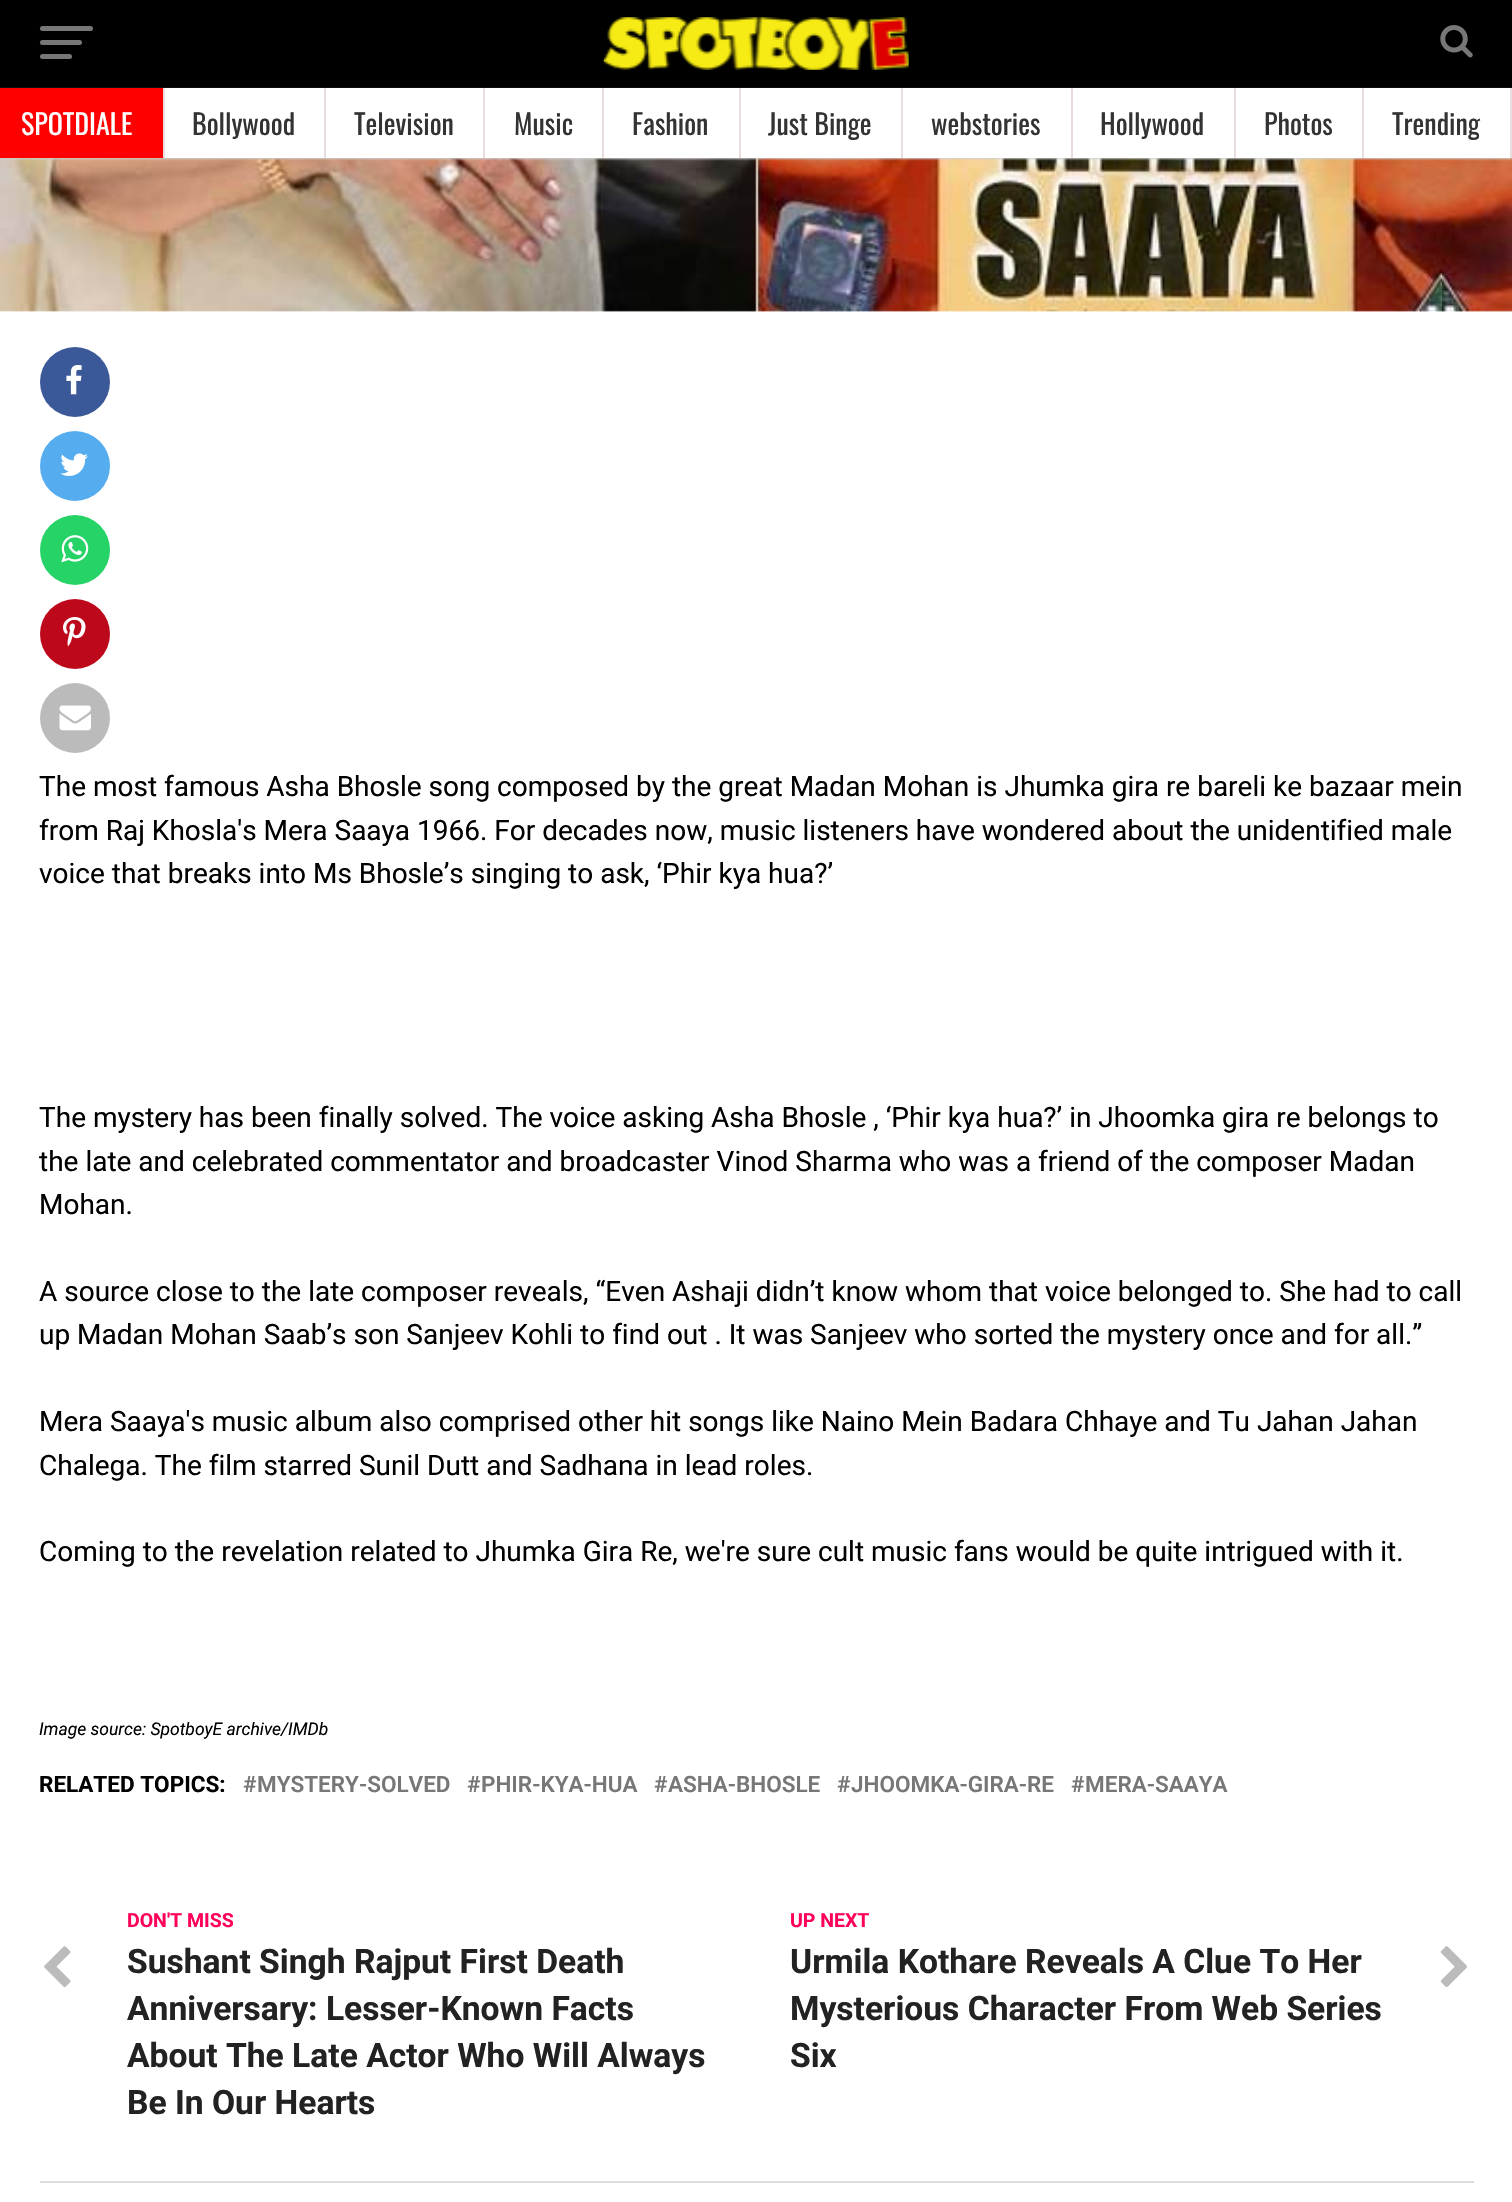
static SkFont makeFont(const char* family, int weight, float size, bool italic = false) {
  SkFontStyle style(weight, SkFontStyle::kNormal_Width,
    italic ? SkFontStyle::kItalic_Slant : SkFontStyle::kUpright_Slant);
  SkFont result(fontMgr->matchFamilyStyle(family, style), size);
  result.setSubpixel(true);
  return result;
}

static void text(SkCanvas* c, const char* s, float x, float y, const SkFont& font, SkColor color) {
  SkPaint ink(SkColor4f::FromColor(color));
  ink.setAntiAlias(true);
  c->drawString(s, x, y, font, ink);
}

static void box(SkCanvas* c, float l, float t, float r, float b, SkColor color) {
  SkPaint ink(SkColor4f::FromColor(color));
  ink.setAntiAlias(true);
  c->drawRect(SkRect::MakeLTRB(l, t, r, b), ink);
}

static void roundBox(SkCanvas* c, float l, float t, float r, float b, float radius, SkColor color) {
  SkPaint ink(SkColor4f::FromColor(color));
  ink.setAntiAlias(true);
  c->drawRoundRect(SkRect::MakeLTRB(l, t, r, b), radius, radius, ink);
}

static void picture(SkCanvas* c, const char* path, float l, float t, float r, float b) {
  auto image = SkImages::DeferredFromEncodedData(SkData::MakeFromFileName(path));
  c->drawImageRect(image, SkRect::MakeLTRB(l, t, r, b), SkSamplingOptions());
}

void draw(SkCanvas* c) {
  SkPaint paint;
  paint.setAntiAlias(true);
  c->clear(0xffffffff);
  box(c, 0, 0, 1512, 88, 0xff000000);
  roundBox(c, 40, 26, 93, 31, 2.5f, 0xff777777);
  roundBox(c, 40, 40, 82, 45, 2.5f, 0xff777777);
  roundBox(c, 40, 54, 72, 59, 2.5f, 0xff777777);
  picture(c, "img_01.png", 603, 17, 909, 70);
  picture(c, "img_02.png", 1440, 25, 1473, 58);
  picture(c, "img_03.png", 0, 158, 1512, 312);
  paint.setColor(0xffcecece);
  paint.setMaskFilter(SkMaskFilter::MakeBlur(kNormal_SkBlurStyle, 1));
  c->drawRect(SkRect::MakeLTRB(0, 89, 1512, 159), paint);
  paint.setMaskFilter(nullptr);
  box(c, 165, 88, 1510, 158, 0xffffffff);
  box(c, 0, 88, 163, 158, 0xffff0000);
  box(c, 163, 88, 165, 158, 0xffeadddd);
  SkFont face1 = makeFont("Oswald", 400, 28);
  text(c, "SPOTDIALE", 21, 135, face1, 0xffffffff);
  box(c, 324, 88, 326, 158, 0xffeadddd);
  text(c, "Bollywood", 192, 135, face1, 0xff333333);
  box(c, 483, 88, 485, 158, 0xffeadddd);
  text(c, "Television", 354, 135, face1, 0xff333333);
  box(c, 602, 88, 604, 158, 0xffeadddd);
  text(c, "Music", 514, 135, face1, 0xff333333);
  box(c, 739, 88, 741, 158, 0xffeadddd);
  text(c, "Fashion", 632, 135, face1, 0xff333333);
  box(c, 901, 88, 903, 158, 0xffeadddd);
  text(c, "Just Binge", 768, 135, face1, 0xff333333);
  box(c, 1071, 88, 1073, 158, 0xffeadddd);
  text(c, "webstories", 931, 135, face1, 0xff333333);
  box(c, 1234, 88, 1236, 158, 0xffeadddd);
  text(c, "Hollywood", 1100, 135, face1, 0xff333333);
  box(c, 1362, 88, 1364, 158, 0xffeadddd);
  text(c, "Photos", 1264, 135, face1, 0xff333333);
  box(c, 1510, 88, 1512, 158, 0xffeadddd);
  text(c, "Trending", 1392, 135, face1, 0xff333333);
  paint.setColor(0xff3b5998);
  c->drawCircle(75, 382, 35, paint);
  picture(c, "img_04.png", 66, 365, 82, 395);
  paint.setColor(0xff55acee);
  c->drawCircle(75, 466, 35, paint);
  picture(c, "img_05.png", 60, 453, 88, 476);
  paint.setColor(0xff25d366);
  c->drawCircle(75, 550, 35, paint);
  picture(c, "img_06.png", 61, 535, 89, 563);
  paint.setColor(0xffbd081c);
  c->drawCircle(75, 634, 35, paint);
  picture(c, "img_07.png", 63, 617, 86, 647);
  paint.setColor(0xffbbbbbb);
  c->drawCircle(75, 718, 35, paint);
  picture(c, "img_08.png", 59, 705, 91, 731);
  SkFont face2 = makeFont("Roboto", 400, 28);
  text(c, "The most famous Asha Bhosle song composed by the great Madan Mohan is Jhumka gira re bareli ke bazaar mein", 39, 796, face2, 0xff000000);
  text(c, "from Raj Khosla's Mera Saaya 1966. For decades now, music listeners have wondered about the unidentified male", 39, 840, face2, 0xff000000);
  text(c, "voice that breaks into Ms Bhosle’s singing to ask, ‘Phir kya hua?’", 39, 883, face2, 0xff000000);
  text(c, "The mystery has been finally solved. The voice asking Asha Bhosle , ‘Phir kya hua?’ in Jhoomka gira re belongs to", 39, 1127, face2, 0xff000000);
  text(c, "the late and celebrated commentator and broadcaster Vinod Sharma who was a friend of the composer Madan", 39, 1171, face2, 0xff000000);
  text(c, "Mohan.", 39, 1214, face2, 0xff000000);
  text(c, "A source close to the late composer reveals, “Even Ashaji didn’t know whom that voice belonged to. She had to call", 39, 1301, face2, 0xff000000);
  text(c, "up Madan Mohan Saab’s son Sanjeev Kohli to find out . It was Sanjeev who sorted the mystery once and for all.”", 39, 1344, face2, 0xff000000);
  text(c, "Mera Saaya's music album also comprised other hit songs like Naino Mein Badara Chhaye and Tu Jahan Jahan", 39, 1431, face2, 0xff000000);
  text(c, "Chalega. The film starred Sunil Dutt and Sadhana in lead roles.", 39, 1475, face2, 0xff000000);
  text(c, "Coming to the revelation related to Jhumka Gira Re, we're sure cult music fans would be quite intrigued with it.", 39, 1561, face2, 0xff000000);
  SkFont face3 = makeFont("Roboto", 400, 17.5f, true);
  text(c, "Image source: SpotboyE archive/IMDb", 39, 1735, face3, 0xff000000);
  SkFont face4 = makeFont("Roboto", 700, 22.5f);
  text(c, "RELATED TOPICS:", 39, 1792, face4, 0xff000000);
  SkFont face5 = makeFont("Roboto", 600, 22.5f);
  text(c, "#", 243, 1792, face5, 0xff777777);
  text(c, "MYSTERY-SOLVED", 257, 1792, face5, 0xff777777);
  text(c, "#", 467, 1792, face5, 0xff777777);
  text(c, "PHIR-KYA-HUA", 481, 1792, face5, 0xff777777);
  text(c, "#", 654, 1792, face5, 0xff777777);
  text(c, "ASHA-BHOSLE", 668, 1792, face5, 0xff777777);
  text(c, "#", 837, 1792, face5, 0xff777777);
  text(c, "JHOOMKA-GIRA-RE", 851, 1792, face5, 0xff777777);
  text(c, "#", 1071, 1792, face5, 0xff777777);
  text(c, "MERA-SAAYA", 1085, 1792, face5, 0xff777777);
  box(c, 40, 2181, 1474, 2183, 0xffdddddd);
  picture(c, "img_09.png", 44, 1946, 71, 1987);
  SkFont face6 = makeFont("Roboto", 700, 19.5f);
  text(c, "DON'T MISS", 127, 1927, face6, 0xffff005b);
  SkFont face7 = makeFont("Roboto", 700, 33.6f);
  text(c, "Sushant Singh Rajput First Death", 127, 1973, face7, 0xff222222);
  text(c, "Anniversary: Lesser-Known Facts", 127, 2020, face7, 0xff222222);
  text(c, "About The Late Actor Who Will Always", 127, 2067, face7, 0xff222222);
  text(c, "Be In Our Hearts", 127, 2114, face7, 0xff222222);
  text(c, "UP NEXT", 790, 1927, face6, 0xffff005b);
  text(c, "Urmila Kothare Reveals A Clue To Her", 790, 1973, face7, 0xff222222);
  text(c, "Mysterious Character From Web Series", 790, 2020, face7, 0xff222222);
  text(c, "Six", 790, 2067, face7, 0xff222222);
  picture(c, "img_10.png", 1440, 1946, 1467, 1987);
}
